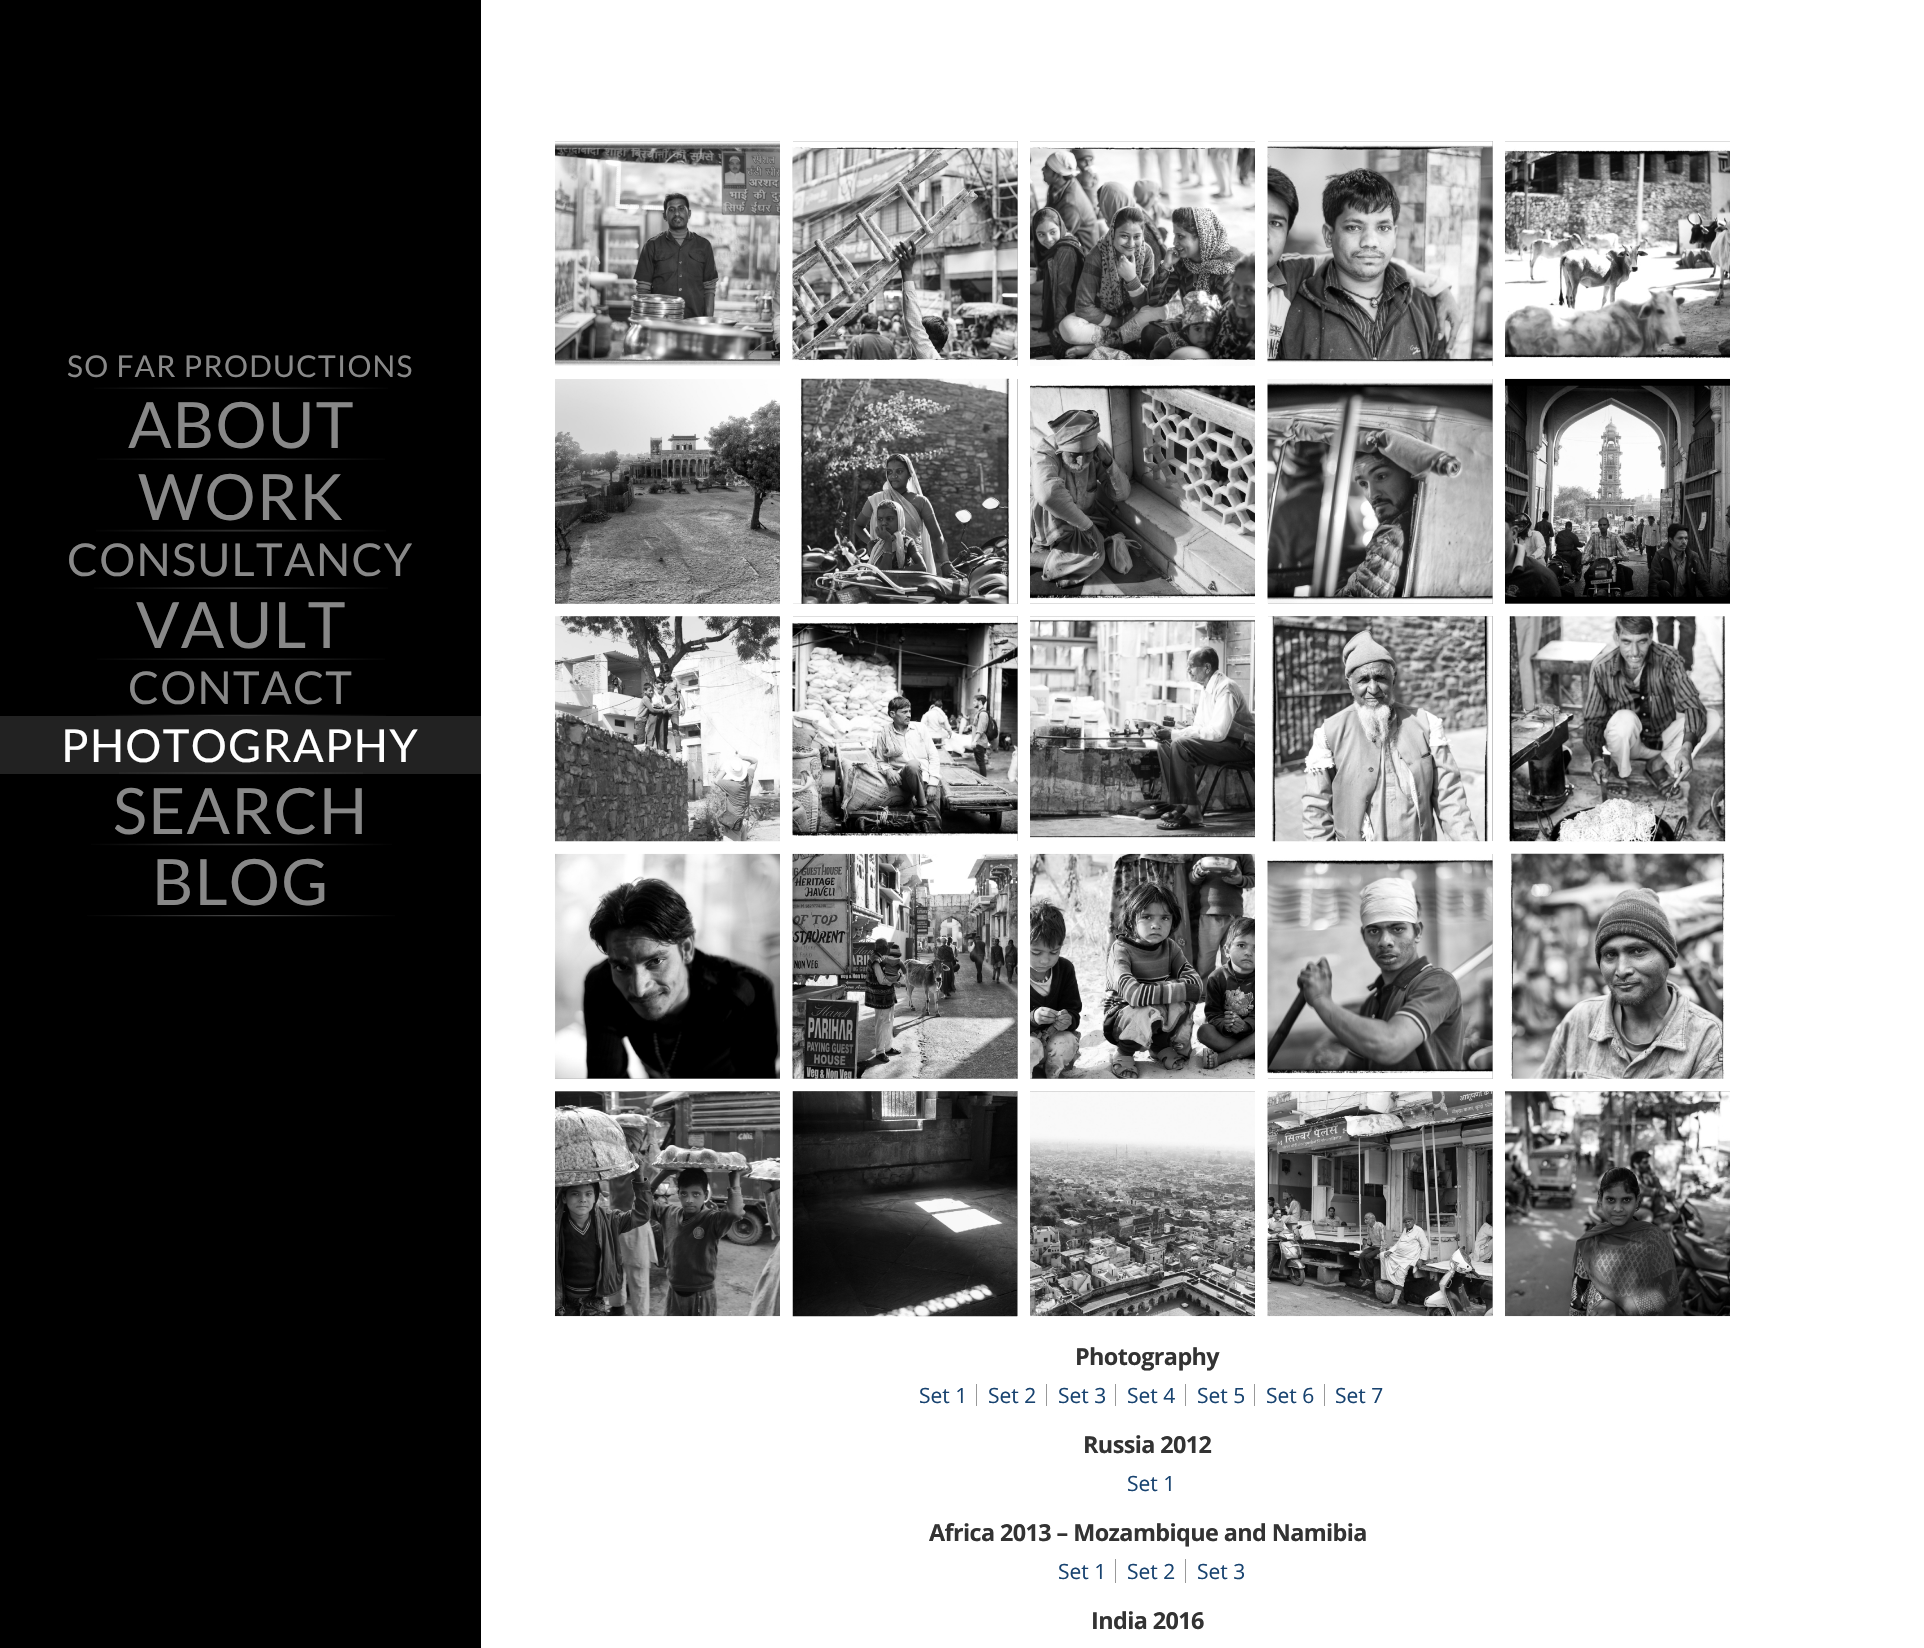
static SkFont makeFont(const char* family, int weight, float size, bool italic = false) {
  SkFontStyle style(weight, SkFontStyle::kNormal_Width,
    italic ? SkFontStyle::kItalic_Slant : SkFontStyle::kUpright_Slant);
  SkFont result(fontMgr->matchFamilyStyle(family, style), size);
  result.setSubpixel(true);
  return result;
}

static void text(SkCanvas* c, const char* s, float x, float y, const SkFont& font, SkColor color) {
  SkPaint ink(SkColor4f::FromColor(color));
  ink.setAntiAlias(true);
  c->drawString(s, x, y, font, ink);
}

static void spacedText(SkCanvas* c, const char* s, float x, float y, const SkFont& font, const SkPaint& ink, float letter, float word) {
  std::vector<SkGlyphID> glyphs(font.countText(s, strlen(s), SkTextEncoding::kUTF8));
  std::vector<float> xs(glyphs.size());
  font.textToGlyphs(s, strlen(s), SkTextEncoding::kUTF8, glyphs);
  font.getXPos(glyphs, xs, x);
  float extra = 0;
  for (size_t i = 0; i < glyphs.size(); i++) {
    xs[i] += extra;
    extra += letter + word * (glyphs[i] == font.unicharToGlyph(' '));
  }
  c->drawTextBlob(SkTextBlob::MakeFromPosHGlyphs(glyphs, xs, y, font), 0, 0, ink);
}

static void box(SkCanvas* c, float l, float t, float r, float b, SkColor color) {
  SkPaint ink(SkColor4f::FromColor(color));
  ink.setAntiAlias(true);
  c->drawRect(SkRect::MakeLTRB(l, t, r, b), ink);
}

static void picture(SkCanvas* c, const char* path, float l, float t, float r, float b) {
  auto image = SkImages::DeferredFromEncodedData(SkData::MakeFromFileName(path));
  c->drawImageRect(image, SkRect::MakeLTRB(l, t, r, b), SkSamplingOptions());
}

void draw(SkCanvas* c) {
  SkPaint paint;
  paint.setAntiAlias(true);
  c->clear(0xffffffff);
  box(c, 0, 0, 481, 1648, 0xff000000);
  picture(c, "img_01.png", 94, 386, 388, 389);
  SkFont face1 = makeFont("Lato", 400, 30);
  paint.setColor(0xff888888);
  spacedText(c, "SO FAR PRODUCTIONS", 67, 377, face1, paint, 1.25f, 0);
  picture(c, "img_02.png", 97, 458, 385, 460);
  SkFont face2 = makeFont("Lato", 400, 64);
  spacedText(c, "ABOUT", 128, 448, face2, paint, 1.25f, 0);
  picture(c, "img_03.png", 96, 529, 386, 532);
  spacedText(c, "WORK", 138, 520, face2, paint, 1.25f, 0);
  picture(c, "img_04.png", 94, 587, 388, 589);
  SkFont face3 = makeFont("Lato", 400, 45.25f);
  spacedText(c, "CONSULTANCY", 67, 576, face3, paint, 1.25f, 0);
  picture(c, "img_02.png", 97, 658, 385, 660);
  spacedText(c, "VAULT", 136, 648, face2, paint, 1.25f, 0);
  picture(c, "img_05.png", 96, 714, 386, 716);
  spacedText(c, "CONTACT", 128, 704, face3, paint, 1.25f, 0);
  box(c, 0, 716, 481, 774, 0xff222222);
  picture(c, "img_06.png", 119, 772, 363, 775);
  paint.setColor(0xffffffff);
  spacedText(c, "PHOTOGRAPHY", 61, 762, face3, paint, 1.25f, 0);
  picture(c, "img_07.png", 91, 843, 392, 846);
  paint.setColor(0xff888888);
  spacedText(c, "SEARCH", 113, 834, face2, paint, 1.25f, 0);
  picture(c, "img_08.png", 87, 915, 395, 917);
  spacedText(c, "BLOG", 152, 905, face2, paint, 1.25f, 0);
  box(c, 555, 141, 780, 142, 0xffb3b3b3);
  picture(c, "img_09.png", 555, 141, 780, 366);
  box(c, 793, 141, 1018, 366, 0xffb3b3b3);
  picture(c, "img_10.png", 792, 141, 1018, 366);
  box(c, 1030, 141, 1255, 142, 0xffb3b3b3);
  picture(c, "img_11.png", 1030, 141, 1255, 366);
  box(c, 1268, 141, 1493, 366, 0xffb3b3b3);
  picture(c, "img_12.png", 1267, 141, 1493, 366);
  box(c, 1505, 141, 1730, 142, 0xffb3b3b3);
  picture(c, "img_13.png", 1505, 141, 1730, 366);
  box(c, 555, 603, 780, 604, 0xffb3b3b3);
  picture(c, "img_14.png", 555, 379, 780, 604);
  box(c, 793, 379, 1018, 604, 0xffb3b3b3);
  picture(c, "img_15.png", 793, 378, 1018, 604);
  box(c, 1030, 603, 1255, 604, 0xffb3b3b3);
  picture(c, "img_16.png", 1030, 379, 1255, 604);
  box(c, 1268, 379, 1493, 604, 0xffb3b3b3);
  picture(c, "img_17.png", 1267, 379, 1493, 604);
  box(c, 1505, 603, 1730, 604, 0xffb3b3b3);
  picture(c, "img_18.png", 1505, 378, 1730, 604);
  picture(c, "img_19.png", 555, 616, 780, 842);
  box(c, 793, 616, 1018, 841, 0xffb3b3b3);
  picture(c, "img_20.png", 792, 616, 1018, 841);
  box(c, 1030, 616, 1255, 617, 0xffb3b3b3);
  picture(c, "img_21.png", 1030, 616, 1255, 841);
  box(c, 1268, 616, 1493, 841, 0xffb3b3b3);
  picture(c, "img_22.png", 1268, 616, 1493, 842);
  picture(c, "img_23.png", 1505, 616, 1730, 842);
  box(c, 555, 1078, 780, 1079, 0xffb3b3b3);
  picture(c, "img_24.png", 555, 853, 780, 1079);
  box(c, 793, 854, 1018, 1079, 0xffb3b3b3);
  picture(c, "img_25.png", 792, 853, 1018, 1079);
  box(c, 1030, 1078, 1255, 1079, 0xffb3b3b3);
  picture(c, "img_26.png", 1030, 853, 1255, 1079);
  box(c, 1268, 854, 1493, 1079, 0xffb3b3b3);
  picture(c, "img_27.png", 1267, 854, 1493, 1079);
  picture(c, "img_28.png", 1505, 853, 1730, 1079);
  box(c, 555, 1091, 780, 1092, 0xffb3b3b3);
  picture(c, "img_29.png", 555, 1091, 780, 1317);
  box(c, 793, 1091, 1018, 1316, 0xffb3b3b3);
  picture(c, "img_30.png", 792, 1091, 1018, 1317);
  box(c, 1030, 1091, 1255, 1092, 0xffb3b3b3);
  picture(c, "img_31.png", 1030, 1091, 1255, 1317);
  box(c, 1268, 1091, 1493, 1316, 0xffb3b3b3);
  picture(c, "img_32.png", 1267, 1091, 1493, 1317);
  box(c, 1505, 1091, 1730, 1092, 0xffb3b3b3);
  picture(c, "img_33.png", 1505, 1091, 1730, 1317);
  SkFont face4 = makeFont("Open Sans", 700, 23.4f);
  paint.setColor(0xff333333);
  spacedText(c, "Photography", 1075, 1365, face4, paint, -0.6f, 0);
  SkFont face5 = makeFont("Open Sans", 400, 21);
  text(c, "Set 1", 919, 1403, face5, 0xff184370);
  box(c, 976, 1384, 977, 1406, 0xff999999);
  text(c, "Set 2", 988, 1403, face5, 0xff184370);
  box(c, 1046, 1384, 1047, 1406, 0xff999999);
  text(c, "Set 3", 1058, 1403, face5, 0xff184370);
  box(c, 1115, 1384, 1116, 1406, 0xff999999);
  text(c, "Set 4", 1127, 1403, face5, 0xff184370);
  box(c, 1185, 1384, 1186, 1406, 0xff999999);
  text(c, "Set 5", 1197, 1403, face5, 0xff184370);
  box(c, 1254, 1384, 1255, 1406, 0xff999999);
  text(c, "Set 6", 1266, 1403, face5, 0xff184370);
  box(c, 1324, 1384, 1325, 1406, 0xff999999);
  text(c, "Set 7", 1335, 1403, face5, 0xff184370);
  spacedText(c, "Russia 2012", 1083, 1453, face4, paint, -0.6f, 0);
  text(c, "Set 1", 1127, 1491, face5, 0xff184370);
  spacedText(c, "Africa 2013 – Mozambique and Namibia", 929, 1541, face4, paint, -0.6f, 0);
  text(c, "Set 1", 1058, 1579, face5, 0xff184370);
  box(c, 1115, 1559, 1116, 1583, 0xff999999);
  text(c, "Set 2", 1127, 1579, face5, 0xff184370);
  box(c, 1185, 1559, 1186, 1583, 0xff999999);
  text(c, "Set 3", 1197, 1579, face5, 0xff184370);
  spacedText(c, "India 2016", 1091, 1629, face4, paint, -0.6f, 0);
}
